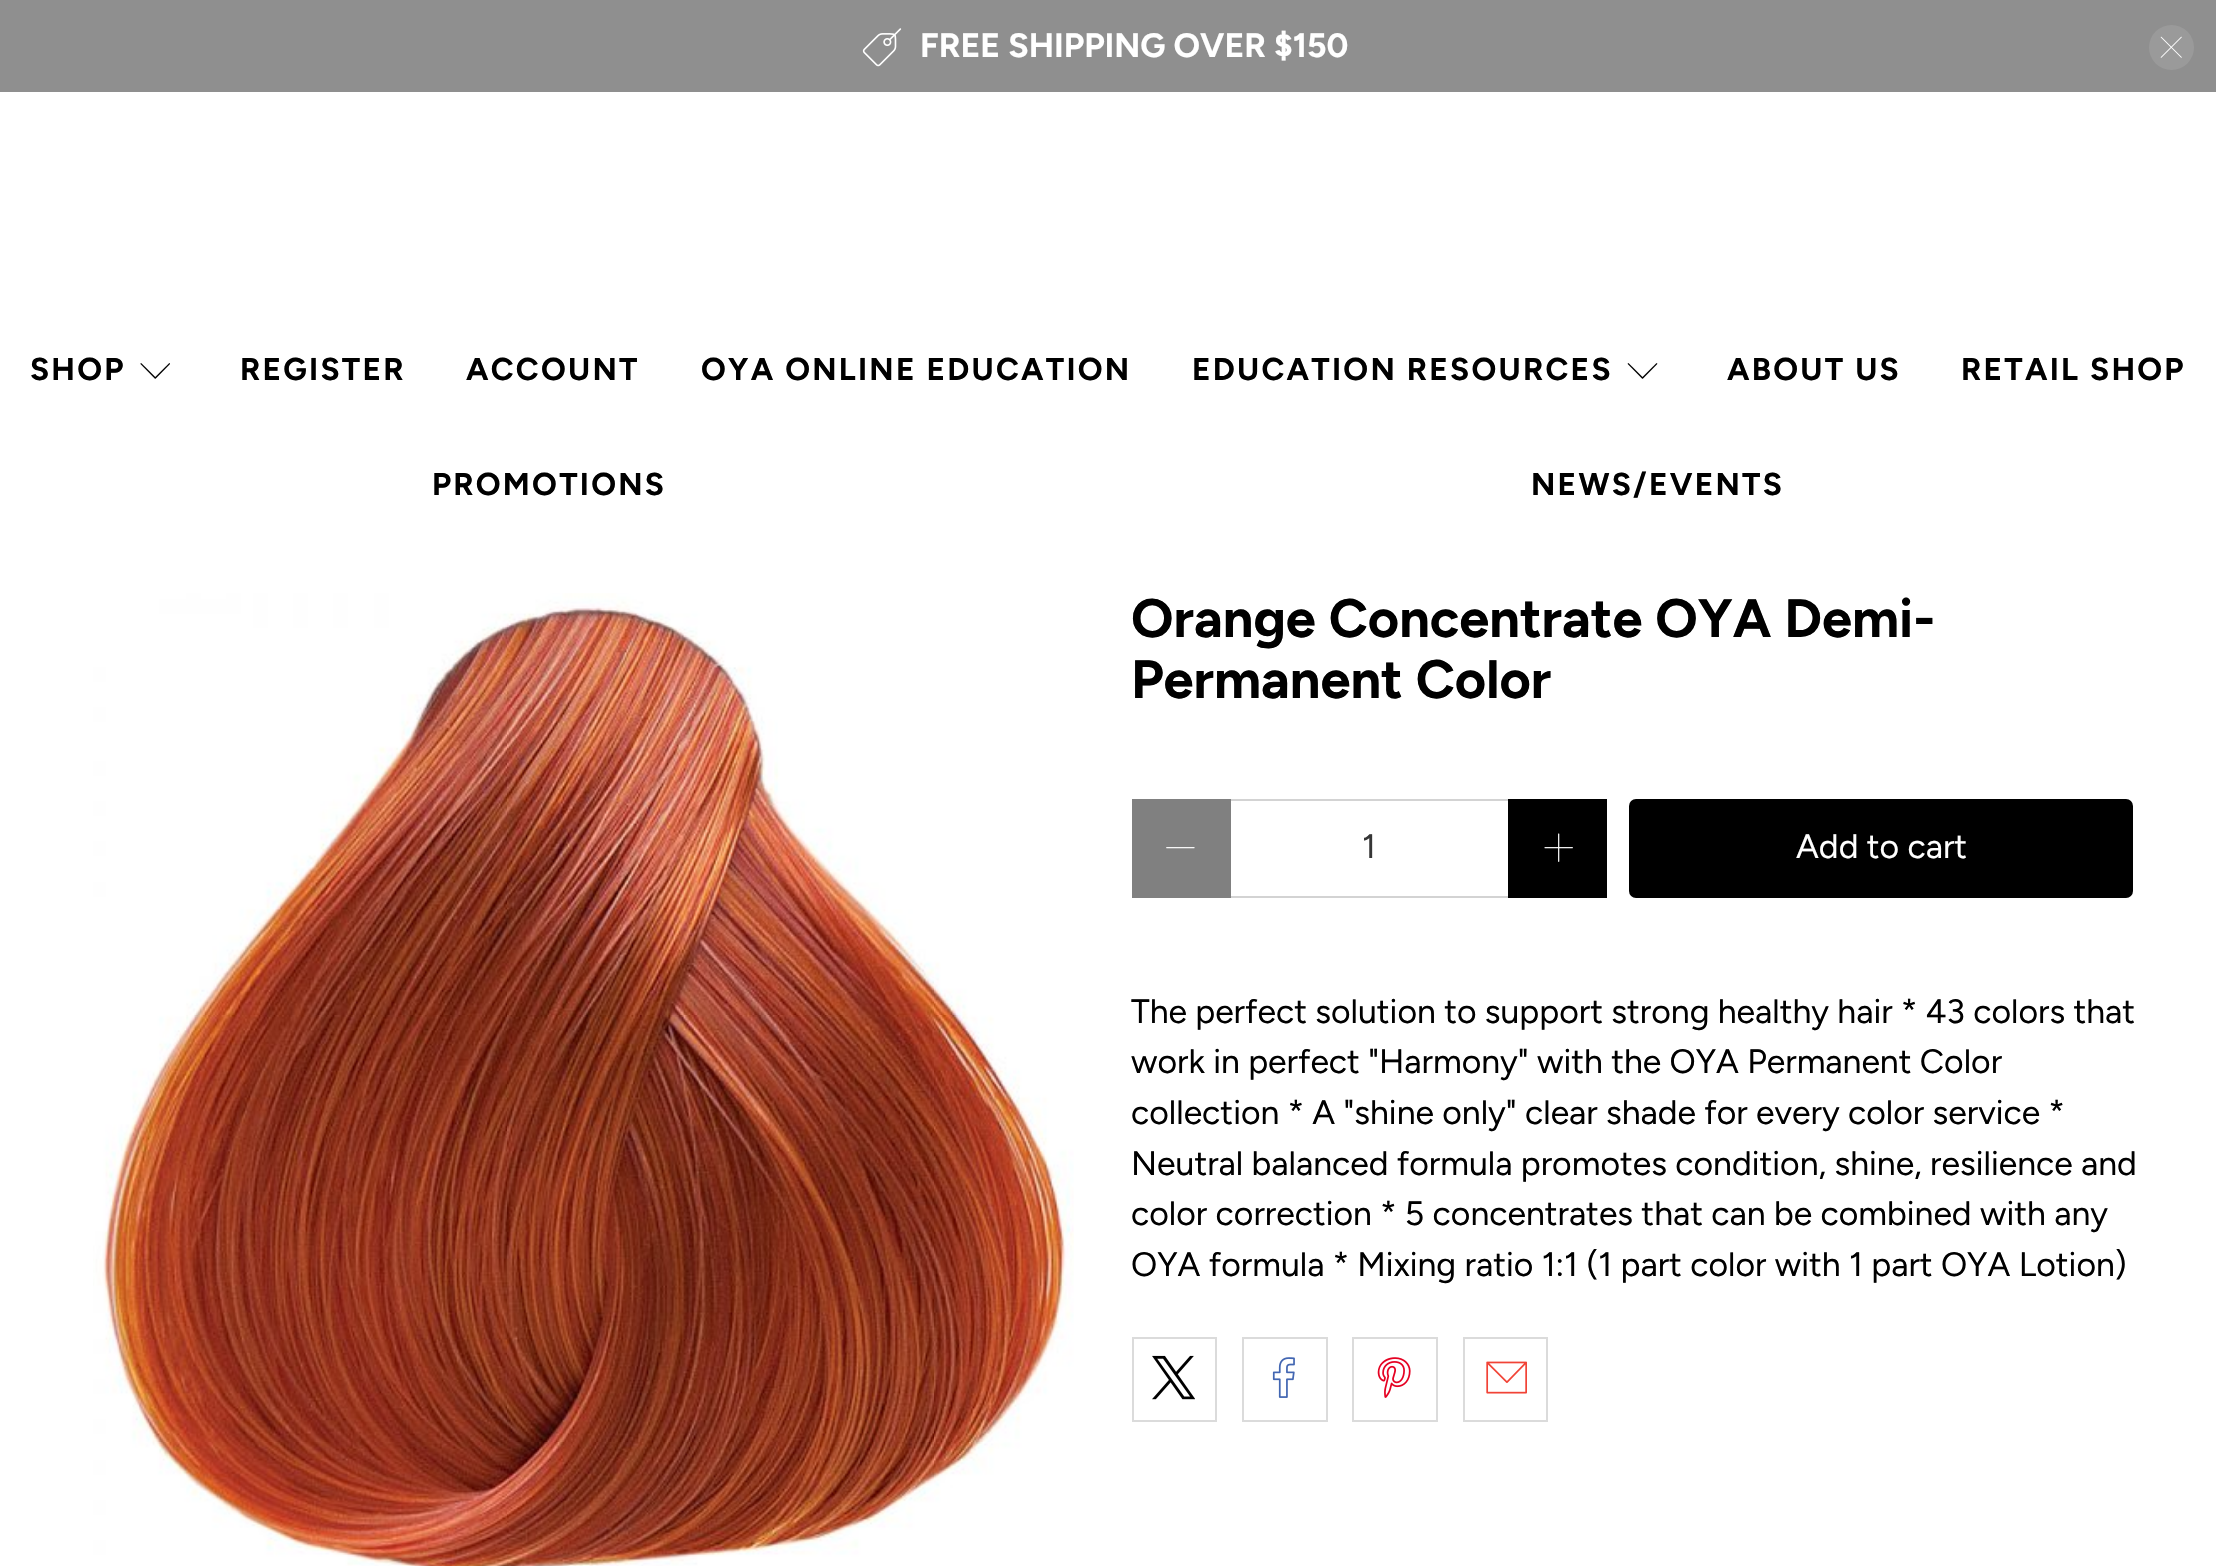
static SkFont makeFont(const char* family, int weight, float size, bool italic = false) {
  SkFontStyle style(weight, SkFontStyle::kNormal_Width,
    italic ? SkFontStyle::kItalic_Slant : SkFontStyle::kUpright_Slant);
  SkFont result(fontMgr->matchFamilyStyle(family, style), size);
  result.setSubpixel(true);
  return result;
}

static void text(SkCanvas* c, const char* s, float x, float y, const SkFont& font, SkColor color) {
  SkPaint ink(SkColor4f::FromColor(color));
  ink.setAntiAlias(true);
  c->drawString(s, x, y, font, ink);
}

static void spacedText(SkCanvas* c, const char* s, float x, float y, const SkFont& font, const SkPaint& ink, float letter, float word) {
  std::vector<SkGlyphID> glyphs(font.countText(s, strlen(s), SkTextEncoding::kUTF8));
  std::vector<float> xs(glyphs.size());
  font.textToGlyphs(s, strlen(s), SkTextEncoding::kUTF8, glyphs);
  font.getXPos(glyphs, xs, x);
  float extra = 0;
  for (size_t i = 0; i < glyphs.size(); i++) {
    xs[i] += extra;
    extra += letter + word * (glyphs[i] == font.unicharToGlyph(' '));
  }
  c->drawTextBlob(SkTextBlob::MakeFromPosHGlyphs(glyphs, xs, y, font), 0, 0, ink);
}

static void box(SkCanvas* c, float l, float t, float r, float b, SkColor color) {
  SkPaint ink(SkColor4f::FromColor(color));
  ink.setAntiAlias(true);
  c->drawRect(SkRect::MakeLTRB(l, t, r, b), ink);
}

static void roundBox(SkCanvas* c, float l, float t, float r, float b, float radius, SkColor color) {
  SkPaint ink(SkColor4f::FromColor(color));
  ink.setAntiAlias(true);
  c->drawRoundRect(SkRect::MakeLTRB(l, t, r, b), radius, radius, ink);
}

static void picture(SkCanvas* c, const char* path, float l, float t, float r, float b) {
  auto image = SkImages::DeferredFromEncodedData(SkData::MakeFromFileName(path));
  c->drawImageRect(image, SkRect::MakeLTRB(l, t, r, b), SkSamplingOptions());
}

void draw(SkCanvas* c) {
  SkPaint paint;
  paint.setAntiAlias(true);
  c->clear(0xffffffff);
  box(c, 0, 0, 2216, 92, 0xff8f8f8f);
  picture(c, "img_01.png", 862, 28, 902, 67);
  SkFont face1 = makeFont("Figtree", 700, 33.75f);
  text(c, "FREE SHIPPING OVER $150", 920, 57, face1, 0xffffffff);
  paint.setColor(0xff9a9a9a);
  c->drawCircle(2171.5f, 47.5f, 22.5f, paint);
  picture(c, "img_02.png", 2160, 36, 2182, 58);
  SkFont face2 = makeFont("Figtree", 700, 31.5f);
  paint.setColor(0xff000000);
  spacedText(c, "SHOP", 30, 380, face2, paint, 2.25f, 0);
  picture(c, "img_03.png", 140, 363, 170, 379);
  spacedText(c, "REGISTER", 240, 380, face2, paint, 2.25f, 0);
  spacedText(c, "ACCOUNT", 466, 380, face2, paint, 2.25f, 0);
  spacedText(c, "OYA ONLINE EDUCATION", 701, 380, face2, paint, 2.25f, 0);
  spacedText(c, "EDUCATION RESOURCES", 1192, 380, face2, paint, 2.25f, 0);
  picture(c, "img_04.png", 1627, 363, 1658, 379);
  spacedText(c, "ABOUT US", 1727, 380, face2, paint, 2.25f, 0);
  spacedText(c, "RETAIL SHOP", 1961, 380, face2, paint, 2.25f, 0);
  spacedText(c, "PROMOTIONS", 432, 495, face2, paint, 2.25f, 0);
  spacedText(c, "NEWS/EVENTS", 1531, 495, face2, paint, 2.25f, 0);
  picture(c, "img_05.png", 93, 593, 1074, 1566);
  SkFont face3 = makeFont("Figtree", 700, 54);
  text(c, "Orange Concentrate OYA Demi-", 1131, 637, face3, 0xff000000);
  text(c, "Permanent Color", 1131, 698, face3, 0xff000000);
  box(c, 1132, 799, 1231, 898, 0xff808080);
  picture(c, "img_06.png", 1166, 847, 1195, 849);
  box(c, 1231, 799, 1508, 801, 0xffd3d3d3);
  box(c, 1231, 896, 1508, 898, 0xffd3d3d3);
  SkFont face4 = makeFont("Figtree", 400, 33.75f);
  text(c, "1", 1362, 858, face4, 0xff363636);
  box(c, 1508, 799, 1607, 898, 0xff000000);
  picture(c, "img_07.png", 1544, 833, 1573, 862);
  roundBox(c, 1629, 799, 2133, 898, 7, 0xff000000);
  text(c, "Add to cart", 1796, 858, face4, 0xffffffff);
  text(c, "The perfect solution to support strong healthy hair * 43 colors that", 1131, 1023, face4, 0xff000000);
  text(c, "work in perfect \"Harmony\" with the OYA Permanent Color", 1131, 1073, face4, 0xff000000);
  text(c, "collection * A \"shine only\" clear shade for every color service *", 1131, 1124, face4, 0xff000000);
  text(c, "Neutral balanced formula promotes condition, shine, resilience and", 1131, 1175, face4, 0xff000000);
  text(c, "color correction * 5 concentrates that can be combined with any", 1131, 1225, face4, 0xff000000);
  text(c, "OYA formula * Mixing ratio 1:1 (1 part color with 1 part OYA Lotion)", 1131, 1276, face4, 0xff000000);
  paint.setStyle(SkPaint::kStroke_Style);
  paint.setStrokeWidth(2);
  paint.setColor(0xffdbdbdb);
  c->drawRect(SkRect::MakeLTRB(1133, 1338, 1216, 1421), paint);
  picture(c, "img_08.png", 1152, 1355, 1195, 1400);
  c->drawRect(SkRect::MakeLTRB(1243, 1338, 1327, 1421), paint);
  picture(c, "img_09.png", 1272, 1357, 1295, 1398);
  c->drawRect(SkRect::MakeLTRB(1353, 1338, 1437, 1421), paint);
  picture(c, "img_10.png", 1377, 1357, 1411, 1398);
  c->drawRect(SkRect::MakeLTRB(1464, 1338, 1547, 1421), paint);
  picture(c, "img_11.png", 1486, 1361, 1527, 1394);
}
